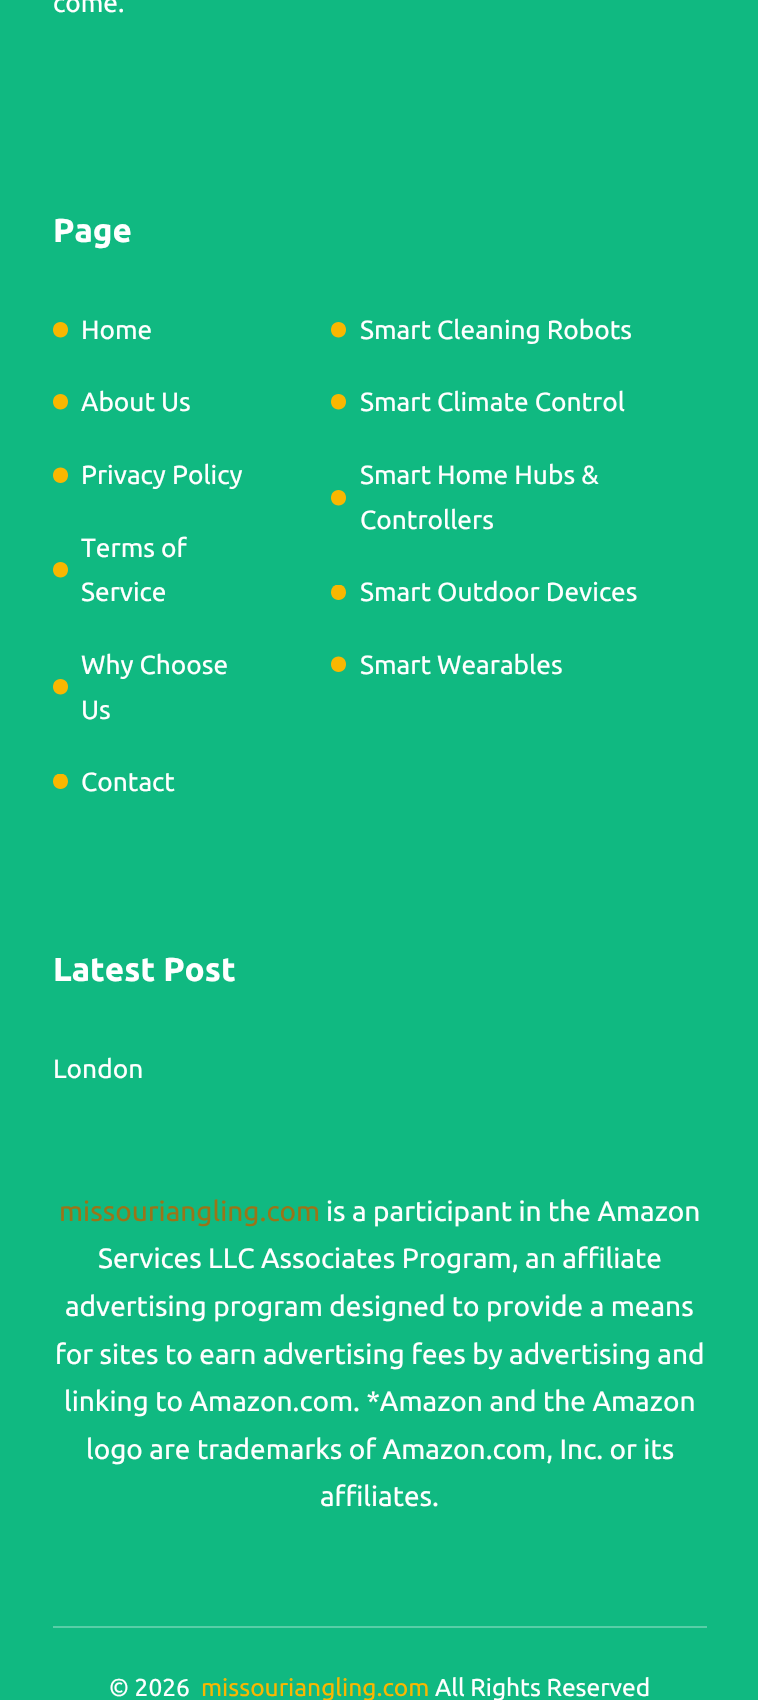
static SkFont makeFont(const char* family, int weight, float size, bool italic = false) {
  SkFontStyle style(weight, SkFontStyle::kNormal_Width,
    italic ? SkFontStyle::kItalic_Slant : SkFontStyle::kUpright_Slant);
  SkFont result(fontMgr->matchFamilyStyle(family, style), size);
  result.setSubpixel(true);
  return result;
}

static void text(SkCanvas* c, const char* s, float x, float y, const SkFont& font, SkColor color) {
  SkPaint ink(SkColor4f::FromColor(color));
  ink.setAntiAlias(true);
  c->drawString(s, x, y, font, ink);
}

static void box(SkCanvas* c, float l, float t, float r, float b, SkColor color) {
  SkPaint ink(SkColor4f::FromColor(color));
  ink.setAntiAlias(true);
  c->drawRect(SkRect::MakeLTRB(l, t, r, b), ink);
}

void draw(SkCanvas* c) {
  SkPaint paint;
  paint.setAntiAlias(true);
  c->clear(0xff10b981);
  SkFont face1 = makeFont("Ubuntu", 400, 26.25f);
  text(c, "come.", 53, 12, face1, 0xffffffff);
  SkFont face2 = makeFont("Ubuntu", 700, 33.25f);
  text(c, "Page", 53, 242, face2, 0xffffffff);
  paint.setColor(0xfff9b700);
  c->drawPath(SkPathBuilder().moveTo(60.5f, 322).cubicTo(50.5f, 322, 50.5f, 337.5f, 60.5f, 337.5f).cubicTo(70.5f, 337.5f, 70.5f, 322, 60.5f, 322).close().detach(), paint);
  text(c, "Home", 81, 339, face1, 0xffffffff);
  c->drawPath(SkPathBuilder().moveTo(60.5f, 394).cubicTo(50.5f, 394, 50.5f, 409.5f, 60.5f, 409.5f).cubicTo(70.5f, 409.5f, 70.5f, 394, 60.5f, 394).close().detach(), paint);
  text(c, "About Us", 81, 411, face1, 0xffffffff);
  c->drawPath(SkPathBuilder().moveTo(60.5f, 467.5f).cubicTo(50.5f, 467.5f, 50.5f, 483, 60.5f, 483).cubicTo(70.5f, 483, 70.5f, 467.5f, 60.5f, 467.5f).close().detach(), paint);
  text(c, "Privacy Policy", 81, 484, face1, 0xffffffff);
  c->drawPath(SkPathBuilder().moveTo(60.5f, 562).cubicTo(50.5f, 562, 50.5f, 577.5f, 60.5f, 577.5f).cubicTo(70.5f, 577.5f, 70.5f, 562, 60.5f, 562).close().detach(), paint);
  text(c, "Terms of", 81, 557, face1, 0xffffffff);
  text(c, "Service", 81, 601, face1, 0xffffffff);
  c->drawPath(SkPathBuilder().moveTo(60.5f, 679).cubicTo(50.5f, 679, 50.5f, 694.5f, 60.5f, 694.5f).cubicTo(70.5f, 694.5f, 70.5f, 679, 60.5f, 679).close().detach(), paint);
  text(c, "Why Choose", 81, 674, face1, 0xffffffff);
  text(c, "Us", 81, 719, face1, 0xffffffff);
  c->save();
  c->clipRect(SkRect::MakeLTRB(53, 774, 68, 789));
  c->drawPath(SkPathBuilder().moveTo(60.5f, 773.5f).cubicTo(50.5f, 773.5f, 50.5f, 789, 60.5f, 789).cubicTo(70.5f, 789, 70.5f, 773.5f, 60.5f, 773.5f).close().detach(), paint);
  c->restore();
  text(c, "Contact", 81, 791, face1, 0xffffffff);
  c->drawPath(SkPathBuilder().moveTo(338.5f, 322).cubicTo(328.5f, 322, 328.5f, 337.5f, 338.5f, 337.5f).cubicTo(348.5f, 337.5f, 348.5f, 322, 338.5f, 322).close().detach(), paint);
  text(c, "Smart Cleaning Robots", 360, 339, face1, 0xffffffff);
  c->drawPath(SkPathBuilder().moveTo(338.5f, 394).cubicTo(328.5f, 394, 328.5f, 409.5f, 338.5f, 409.5f).cubicTo(348.5f, 409.5f, 348.5f, 394, 338.5f, 394).close().detach(), paint);
  text(c, "Smart Climate Control", 360, 411, face1, 0xffffffff);
  c->drawPath(SkPathBuilder().moveTo(338.5f, 490).cubicTo(328.5f, 490, 328.5f, 505.5f, 338.5f, 505.5f).cubicTo(348.5f, 505.5f, 348.5f, 490, 338.5f, 490).close().detach(), paint);
  text(c, "Smart Home Hubs &", 360, 484, face1, 0xffffffff);
  text(c, "Controllers", 360, 529, face1, 0xffffffff);
  c->save();
  c->clipRect(SkRect::MakeLTRB(331, 585, 347, 600));
  c->drawPath(SkPathBuilder().moveTo(338.5f, 584.5f).cubicTo(328.5f, 584.5f, 328.5f, 600, 338.5f, 600).cubicTo(348.5f, 600, 348.5f, 584.5f, 338.5f, 584.5f).close().detach(), paint);
  c->restore();
  text(c, "Smart Outdoor Devices", 360, 601, face1, 0xffffffff);
  c->drawPath(SkPathBuilder().moveTo(338.5f, 656.5f).cubicTo(328.5f, 656.5f, 328.5f, 672, 338.5f, 672).cubicTo(348.5f, 672, 348.5f, 656.5f, 338.5f, 656.5f).close().detach(), paint);
  text(c, "Smart Wearables", 360, 674, face1, 0xffffffff);
  text(c, "Latest Post", 53, 981, face2, 0xffffffff);
  text(c, "London", 53, 1078, face1, 0xffffffff);
  SkFont face3 = makeFont("Ubuntu", 400, 28);
  text(c, "missouriangling.com", 59, 1221, face3, 0xff9a7418);
  text(c, "is a participant in the Amazon", 326, 1221, face3, 0xffffffff);
  text(c, "Services LLC Associates Program, an affiliate", 98, 1268, face3, 0xffffffff);
  text(c, "advertising program designed to provide a means", 65, 1316, face3, 0xffffffff);
  text(c, "for sites to earn advertising fees by advertising and", 55, 1364, face3, 0xffffffff);
  text(c, "linking to Amazon.com. *Amazon and the Amazon", 64, 1411, face3, 0xffffffff);
  text(c, "logo are trademarks of Amazon.com, Inc. or its", 86, 1459, face3, 0xffffffff);
  text(c, "affiliates.", 320, 1506, face3, 0xffffffff);
  box(c, 53, 1626, 707, 1628, 0xff58cea7);
  SkFont face4 = makeFont("Ubuntu", 400, 24.5f);
  text(c, "© 2026", 109, 1696, face4, 0xffffffff);
  text(c, "missouriangling.com", 201, 1696, face4, 0xfff9b700);
  text(c, "All Rights Reserved", 435, 1696, face4, 0xffffffff);
}
